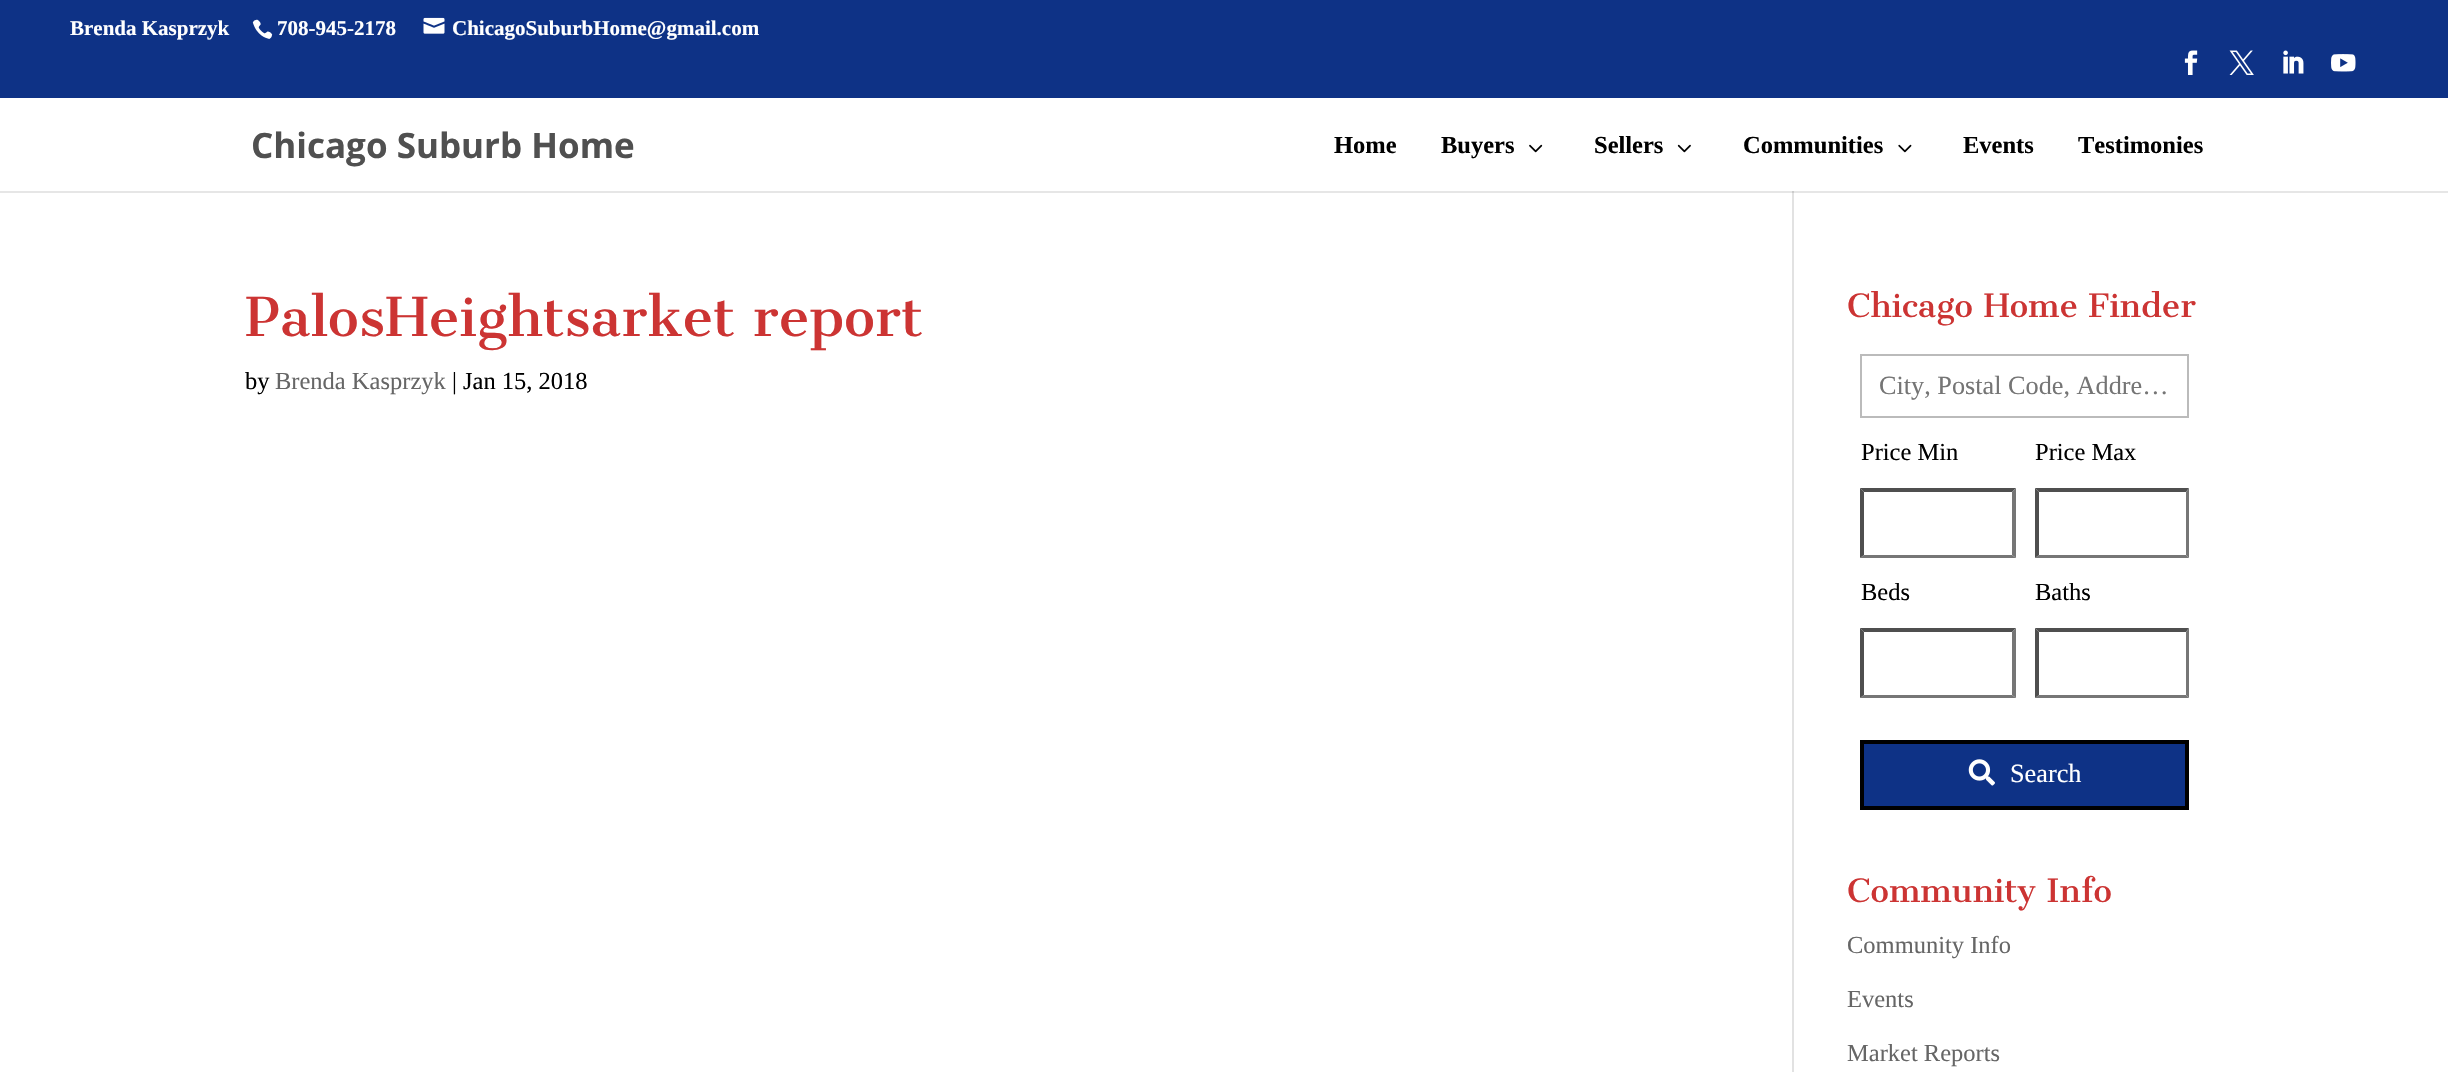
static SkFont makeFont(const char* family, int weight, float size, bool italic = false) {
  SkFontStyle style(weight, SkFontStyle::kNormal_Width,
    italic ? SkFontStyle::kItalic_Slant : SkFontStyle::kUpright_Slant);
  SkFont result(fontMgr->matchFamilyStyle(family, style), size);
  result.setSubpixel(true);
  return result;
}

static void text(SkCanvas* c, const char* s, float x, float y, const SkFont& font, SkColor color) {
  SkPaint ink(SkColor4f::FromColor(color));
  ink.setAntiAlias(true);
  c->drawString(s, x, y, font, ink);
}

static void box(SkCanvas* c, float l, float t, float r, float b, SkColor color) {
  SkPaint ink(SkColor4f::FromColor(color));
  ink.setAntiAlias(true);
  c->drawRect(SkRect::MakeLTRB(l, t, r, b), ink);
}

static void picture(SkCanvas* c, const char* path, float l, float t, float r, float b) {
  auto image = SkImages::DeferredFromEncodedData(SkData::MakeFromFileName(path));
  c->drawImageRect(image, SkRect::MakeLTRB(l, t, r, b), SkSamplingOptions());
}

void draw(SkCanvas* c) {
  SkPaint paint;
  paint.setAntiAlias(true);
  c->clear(0xffffffff);
  box(c, 0, 191, 2448, 193, 0xffe6e6e6);
  box(c, 0, 0, 2448, 98, 0xff0e3286);
  SkFont face1 = makeFont("Liberation Serif", 700, 21);
  text(c, "Brenda Kasprzyk", 70, 35, face1, 0xffffffff);
  picture(c, "img_01.png", 252, 19, 273, 39);
  text(c, "708-945-2178", 277, 35, face1, 0xffffffff);
  picture(c, "img_02.png", 423, 17, 445, 34);
  text(c, "ChicagoSuburbHome@gmail.com", 452, 35, face1, 0xffffffff);
  picture(c, "img_03.png", 2184, 50, 2198, 75);
  picture(c, "img_04.png", 2229, 50, 2254, 75);
  picture(c, "img_05.png", 2283, 50, 2304, 74);
  picture(c, "img_06.png", 2331, 54, 2356, 72);
  box(c, 1792, 189, 1794, 1072, 0xffe2e2e2);
  box(c, 1792, 189, 1794, 191, 0xffffffff);
  SkFont face2 = makeFont("Open Sans", 700, 35);
  text(c, "Chicago Suburb Home", 251, 158, face2, 0xff505050);
  SkFont face3 = makeFont("Liberation Serif", 700, 24.5f);
  text(c, "Home", 1334, 153, face3, 0xff000000);
  text(c, "Buyers", 1441, 153, face3, 0xff000000);
  picture(c, "img_07.png", 1529, 144, 1543, 153);
  text(c, "Sellers", 1594, 153, face3, 0xff000000);
  picture(c, "img_08.png", 1677, 144, 1691, 153);
  text(c, "Communities", 1743, 153, face3, 0xff000000);
  picture(c, "img_09.png", 1898, 144, 1912, 153);
  text(c, "Events", 1963, 153, face3, 0xff000000);
  text(c, "Testimonies", 2078, 153, face3, 0xff000000);
  box(c, 1792, 191, 1794, 193, 0xffcbcbcb);
  SkFont face4 = makeFont("Cantata One", 400, 52.5f);
  text(c, "PalosHeightsarket report", 245, 336, face4, 0xffcc3433);
  SkFont face5 = makeFont("Liberation Serif", 400, 24.5f);
  text(c, "by", 245, 389, face5, 0xff000000);
  text(c, "Brenda Kasprzyk", 275, 389, face5, 0xff666666);
  text(c, "| Jan 15, 2018", 452, 389, face5, 0xff000000);
  SkFont face6 = makeFont("Cantata One", 400, 31.5f);
  text(c, "Chicago Home Finder", 1847, 317, face6, 0xffcc3433);
  paint.setStyle(SkPaint::kStroke_Style);
  paint.setStrokeWidth(2);
  paint.setColor(0xffbbbbbb);
  c->drawRect(SkRect::MakeLTRB(1861, 355, 2188, 417), paint);
  SkFont face7 = makeFont("Liberation Serif", 400, 26.25f);
  text(c, "City, Postal Code, Addre…", 1879, 394, face7, 0xff757575);
  text(c, "Price Min", 1861, 460, face5, 0xff000000);
  paint.setStyle(SkPaint::kFill_Style);
  paint.setColor(0xff4f4f4f);
  c->drawPath(SkPathBuilder().moveTo(1860, 488).lineTo(2016, 488).lineTo(2012, 492).lineTo(1864, 492).close().detach(), paint);
  paint.setColor(0xff767676);
  c->drawPath(SkPathBuilder().moveTo(2016, 488).lineTo(2016, 558).lineTo(2012, 555).lineTo(2012, 492).close().detach(), paint);
  c->drawPath(SkPathBuilder().moveTo(2016, 558).lineTo(1860, 558).lineTo(1864, 555).lineTo(2012, 555).close().detach(), paint);
  paint.setColor(0xff4f4f4f);
  c->drawPath(SkPathBuilder().moveTo(1860, 558).lineTo(1860, 488).lineTo(1864, 492).lineTo(1864, 555).close().detach(), paint);
  text(c, "Price Max", 2035, 460, face5, 0xff000000);
  c->drawPath(SkPathBuilder().moveTo(2035, 488).lineTo(2189, 488).lineTo(2186, 492).lineTo(2039, 492).close().detach(), paint);
  paint.setColor(0xff767676);
  c->drawPath(SkPathBuilder().moveTo(2189, 488).lineTo(2189, 558).lineTo(2186, 555).lineTo(2186, 492).close().detach(), paint);
  c->drawPath(SkPathBuilder().moveTo(2189, 558).lineTo(2035, 558).lineTo(2039, 555).lineTo(2186, 555).close().detach(), paint);
  paint.setColor(0xff4f4f4f);
  c->drawPath(SkPathBuilder().moveTo(2035, 558).lineTo(2035, 488).lineTo(2039, 492).lineTo(2039, 555).close().detach(), paint);
  text(c, "Beds", 1861, 600, face5, 0xff000000);
  c->drawPath(SkPathBuilder().moveTo(1860, 628).lineTo(2016, 628).lineTo(2012, 632).lineTo(1864, 632).close().detach(), paint);
  paint.setColor(0xff767676);
  c->drawPath(SkPathBuilder().moveTo(2016, 628).lineTo(2016, 698).lineTo(2012, 695).lineTo(2012, 632).close().detach(), paint);
  c->drawPath(SkPathBuilder().moveTo(2016, 698).lineTo(1860, 698).lineTo(1864, 695).lineTo(2012, 695).close().detach(), paint);
  paint.setColor(0xff4f4f4f);
  c->drawPath(SkPathBuilder().moveTo(1860, 698).lineTo(1860, 628).lineTo(1864, 632).lineTo(1864, 695).close().detach(), paint);
  text(c, "Baths", 2035, 600, face5, 0xff000000);
  c->drawPath(SkPathBuilder().moveTo(2035, 628).lineTo(2189, 628).lineTo(2186, 632).lineTo(2039, 632).close().detach(), paint);
  paint.setColor(0xff767676);
  c->drawPath(SkPathBuilder().moveTo(2189, 628).lineTo(2189, 698).lineTo(2186, 695).lineTo(2186, 632).close().detach(), paint);
  c->drawPath(SkPathBuilder().moveTo(2189, 698).lineTo(2035, 698).lineTo(2039, 695).lineTo(2186, 695).close().detach(), paint);
  paint.setColor(0xff4f4f4f);
  c->drawPath(SkPathBuilder().moveTo(2035, 698).lineTo(2035, 628).lineTo(2039, 632).lineTo(2039, 695).close().detach(), paint);
  paint.setColor(0xff0e3286);
  c->drawRect(SkRect::MakeLTRB(1862, 742, 2187, 808), paint);
  paint.setStyle(SkPaint::kStroke_Style);
  paint.setStrokeWidth(4);
  paint.setColor(0xff000000);
  c->drawRect(SkRect::MakeLTRB(1862, 742, 2187, 808), paint);
  picture(c, "img_10.png", 1968, 759, 1995, 786);
  text(c, "Search", 2010, 782, face7, 0xffffffff);
  text(c, "Community Info", 1847, 902, face6, 0xffcc3433);
  text(c, "Community Info", 1847, 953, face5, 0xff666666);
  text(c, "Events", 1847, 1007, face5, 0xff666666);
  text(c, "Market Reports", 1847, 1061, face5, 0xff666666);
}
